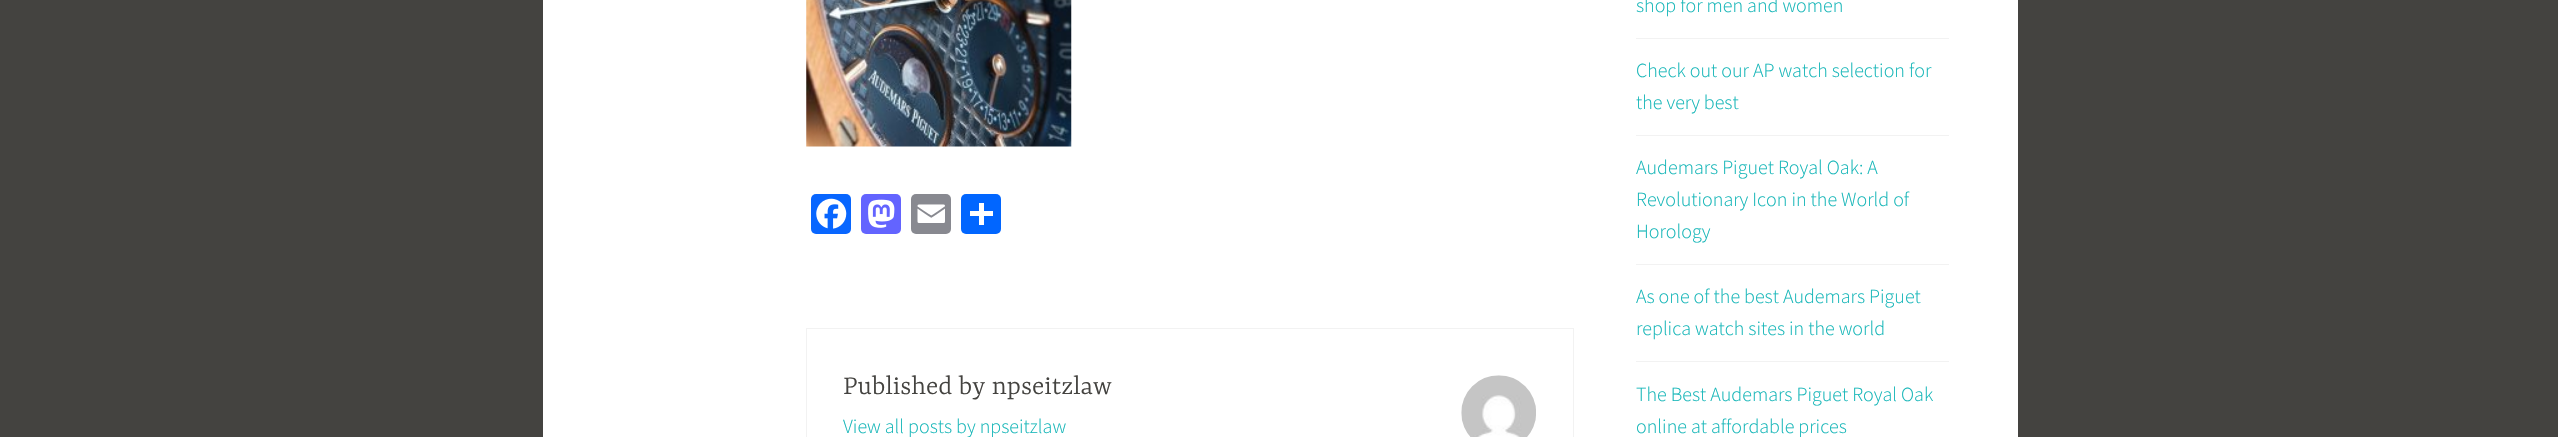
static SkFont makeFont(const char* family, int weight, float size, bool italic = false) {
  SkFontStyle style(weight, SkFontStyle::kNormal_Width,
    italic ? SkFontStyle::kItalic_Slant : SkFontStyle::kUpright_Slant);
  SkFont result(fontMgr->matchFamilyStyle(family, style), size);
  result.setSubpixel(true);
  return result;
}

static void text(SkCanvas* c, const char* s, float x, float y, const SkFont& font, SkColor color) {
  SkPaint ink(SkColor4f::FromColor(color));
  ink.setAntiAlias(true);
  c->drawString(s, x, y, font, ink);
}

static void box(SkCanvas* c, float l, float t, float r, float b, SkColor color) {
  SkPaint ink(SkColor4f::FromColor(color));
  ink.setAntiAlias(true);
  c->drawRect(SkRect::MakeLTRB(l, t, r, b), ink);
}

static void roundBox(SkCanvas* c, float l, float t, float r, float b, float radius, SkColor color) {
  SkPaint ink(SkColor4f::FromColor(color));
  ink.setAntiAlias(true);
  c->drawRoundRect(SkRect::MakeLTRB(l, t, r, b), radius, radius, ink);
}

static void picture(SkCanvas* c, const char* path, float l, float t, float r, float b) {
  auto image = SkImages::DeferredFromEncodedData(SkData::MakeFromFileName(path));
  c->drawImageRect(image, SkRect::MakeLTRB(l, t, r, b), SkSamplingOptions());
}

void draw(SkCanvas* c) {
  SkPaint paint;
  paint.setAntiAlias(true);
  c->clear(0xff444340);
  box(c, 543, 0, 2018, 437, 0xffffffff);
  picture(c, "img_01.png", 806, 0, 1072, 147);
  roundBox(c, 811, 194, 851, 234, 5, 0xff0866ff);
  picture(c, "img_02.png", 816, 198, 847, 229);
  roundBox(c, 861, 194, 901, 234, 5, 0xff6364ff);
  picture(c, "img_03.png", 868, 199, 895, 228);
  roundBox(c, 911, 194, 951, 234, 5, 0xff888990);
  picture(c, "img_04.png", 917, 204, 945, 223);
  roundBox(c, 961, 194, 1001, 234, 5, 0xff0166ff);
  box(c, 979, 203, 984, 225, 0xffffffff);
  box(c, 970, 211, 993, 216, 0xffffffff);
  paint.setStyle(SkPaint::kStroke_Style);
  paint.setStrokeWidth(1);
  paint.setColor(0xfff2f2f2);
  c->drawRect(SkRect::MakeLTRB(806.5f, 328.5f, 1573.5f, 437.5f), paint);
  SkFont face1 = makeFont("Yrsa", 300, 28.75f);
  text(c, "Published by npseitzlaw", 843, 394, face1, 0xff444340);
  picture(c, "img_05.png", 1461, 375, 1536, 437);
  SkFont face2 = makeFont("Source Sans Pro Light", 300, 20);
  text(c, "View all posts by npseitzlaw", 843, 433, face2, 0xff15b6b8);
  text(c, "shop for men and women", 1636, 12, face2, 0xff15b6b8);
  box(c, 1636, 38, 1949, 39, 0xfff2f2f2);
  text(c, "Check out our AP watch selection for", 1636, 77, face2, 0xff15b6b8);
  text(c, "the very best", 1636, 109, face2, 0xff15b6b8);
  box(c, 1636, 135, 1949, 136, 0xfff2f2f2);
  text(c, "Audemars Piguet Royal Oak: A", 1636, 174, face2, 0xff15b6b8);
  text(c, "Revolutionary Icon in the World of", 1636, 206, face2, 0xff15b6b8);
  text(c, "Horology", 1636, 238, face2, 0xff15b6b8);
  box(c, 1636, 264, 1949, 265, 0xfff2f2f2);
  text(c, "As one of the best Audemars Piguet", 1636, 303, face2, 0xff15b6b8);
  text(c, "replica watch sites in the world", 1636, 335, face2, 0xff15b6b8);
  box(c, 1636, 361, 1949, 362, 0xfff2f2f2);
  text(c, "The Best Audemars Piguet Royal Oak", 1636, 401, face2, 0xff15b6b8);
  text(c, "online at affordable prices", 1636, 433, face2, 0xff15b6b8);
}
